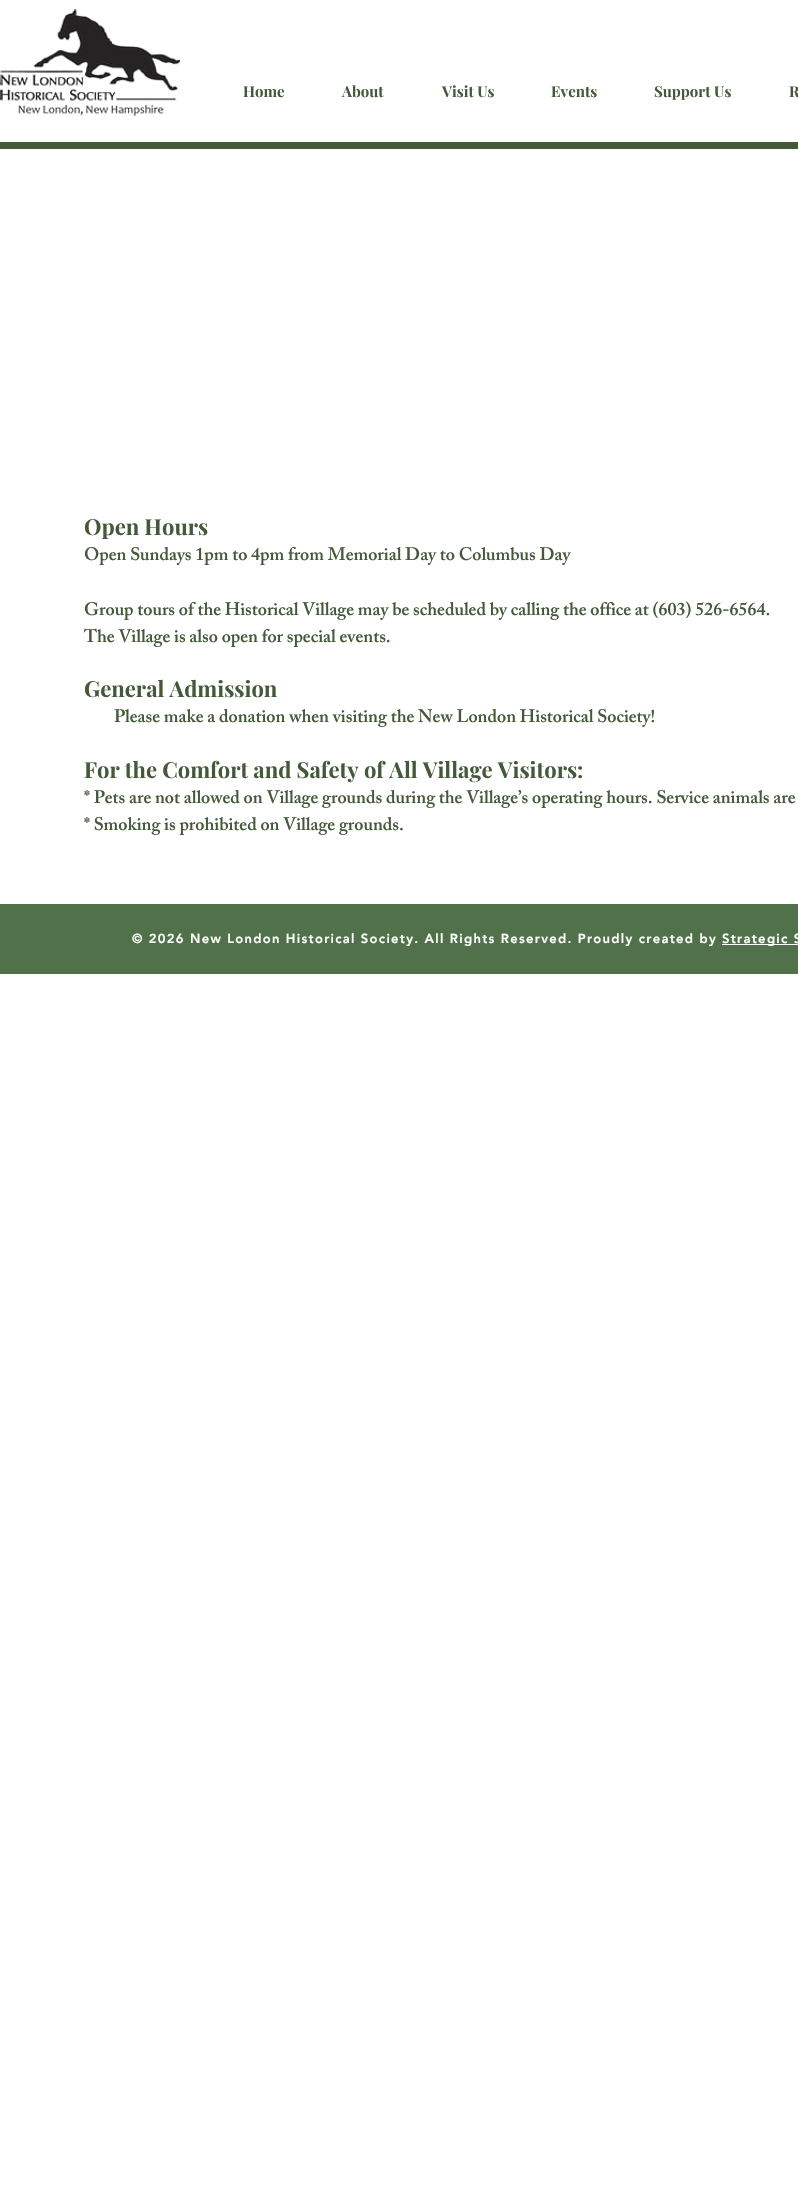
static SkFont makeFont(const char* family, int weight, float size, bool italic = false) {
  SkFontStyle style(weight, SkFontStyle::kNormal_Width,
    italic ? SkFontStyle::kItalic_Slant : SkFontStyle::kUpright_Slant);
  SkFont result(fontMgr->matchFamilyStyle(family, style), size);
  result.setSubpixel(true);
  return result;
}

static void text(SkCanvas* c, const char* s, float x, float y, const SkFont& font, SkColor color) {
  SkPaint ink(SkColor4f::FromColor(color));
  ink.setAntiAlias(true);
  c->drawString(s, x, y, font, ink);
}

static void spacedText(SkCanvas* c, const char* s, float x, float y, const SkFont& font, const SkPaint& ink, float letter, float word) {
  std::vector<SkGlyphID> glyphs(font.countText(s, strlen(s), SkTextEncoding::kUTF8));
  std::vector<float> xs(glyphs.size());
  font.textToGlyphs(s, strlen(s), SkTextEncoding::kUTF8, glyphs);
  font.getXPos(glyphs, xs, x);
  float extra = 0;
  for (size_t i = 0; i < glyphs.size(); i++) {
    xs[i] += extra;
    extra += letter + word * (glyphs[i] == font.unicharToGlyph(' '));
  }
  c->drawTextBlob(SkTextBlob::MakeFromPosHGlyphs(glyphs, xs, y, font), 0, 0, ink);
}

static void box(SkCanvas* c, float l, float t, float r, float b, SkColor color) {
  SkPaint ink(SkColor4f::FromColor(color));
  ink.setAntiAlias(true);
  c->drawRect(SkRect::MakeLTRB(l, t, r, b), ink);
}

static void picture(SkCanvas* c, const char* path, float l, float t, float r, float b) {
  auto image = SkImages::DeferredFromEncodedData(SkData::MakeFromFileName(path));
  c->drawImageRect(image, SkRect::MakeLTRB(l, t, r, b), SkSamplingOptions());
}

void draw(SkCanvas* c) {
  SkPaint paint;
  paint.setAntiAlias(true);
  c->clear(0xffffffff);
  picture(c, "img_01.png", 0, 9, 180, 116);
  SkFont face1 = makeFont("Playfair Display", 700, 15);
  text(c, "Home", 243, 97, face1, 0xff44593a);
  text(c, "About", 342, 97, face1, 0xff44593a);
  text(c, "Visit Us", 442, 97, face1, 0xff44593a);
  text(c, "Events", 551, 97, face1, 0xff44593a);
  text(c, "Support Us", 654, 97, face1, 0xff44593a);
  text(c, "R", 789, 97, face1, 0xff44593a);
  box(c, 0, 142, 798, 149, 0xff44593a);
  SkFont face2 = makeFont("Playfair Display", 700, 22);
  text(c, "Open Hours", 84, 535, face2, 0xff44593a);
  SkFont face3 = makeFont("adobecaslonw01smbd", 600, 18);
  text(c, "Open Sundays 1pm to 4pm from Memorial Day to Columbus Day", 84, 560, face3, 0xff44593a);
  text(c, "Group tours of the Historical Village may be scheduled by calling the office at (603) 526-6564.", 84, 615, face3, 0xff44593a);
  text(c, "The Village is also open for special events.", 84, 642, face3, 0xff44593a);
  text(c, "General Admission", 84, 697, face2, 0xff44593a);
  text(c, "Please make a donation when visiting the New London Historical Society!", 114, 722, face3, 0xff44593a);
  text(c, "For the Comfort and Safety of All Village Visitors:", 84, 778, face2, 0xff44593a);
  text(c, "* Pets are not allowed on Village grounds during the Village’s operating hours. Service animals are", 84, 803, face3, 0xff44593a);
  text(c, "* Smoking is prohibited on Village grounds.", 84, 830, face3, 0xff44593a);
  box(c, 0, 904, 798, 974, 0xff51714b);
  SkFont face4 = makeFont("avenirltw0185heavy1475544", 900, 13);
  paint.setColor(0xffffffff);
  spacedText(c, "© 2026 New London Historical Society. All Rights Reserved. Proudly created by", 132, 943, face4, paint, 1.3f, 0);
  box(c, 722, 944, 798, 945, 0xffffffff);
  spacedText(c, "Strategic S", 722, 943, face4, paint, 1.3f, 0);
}
